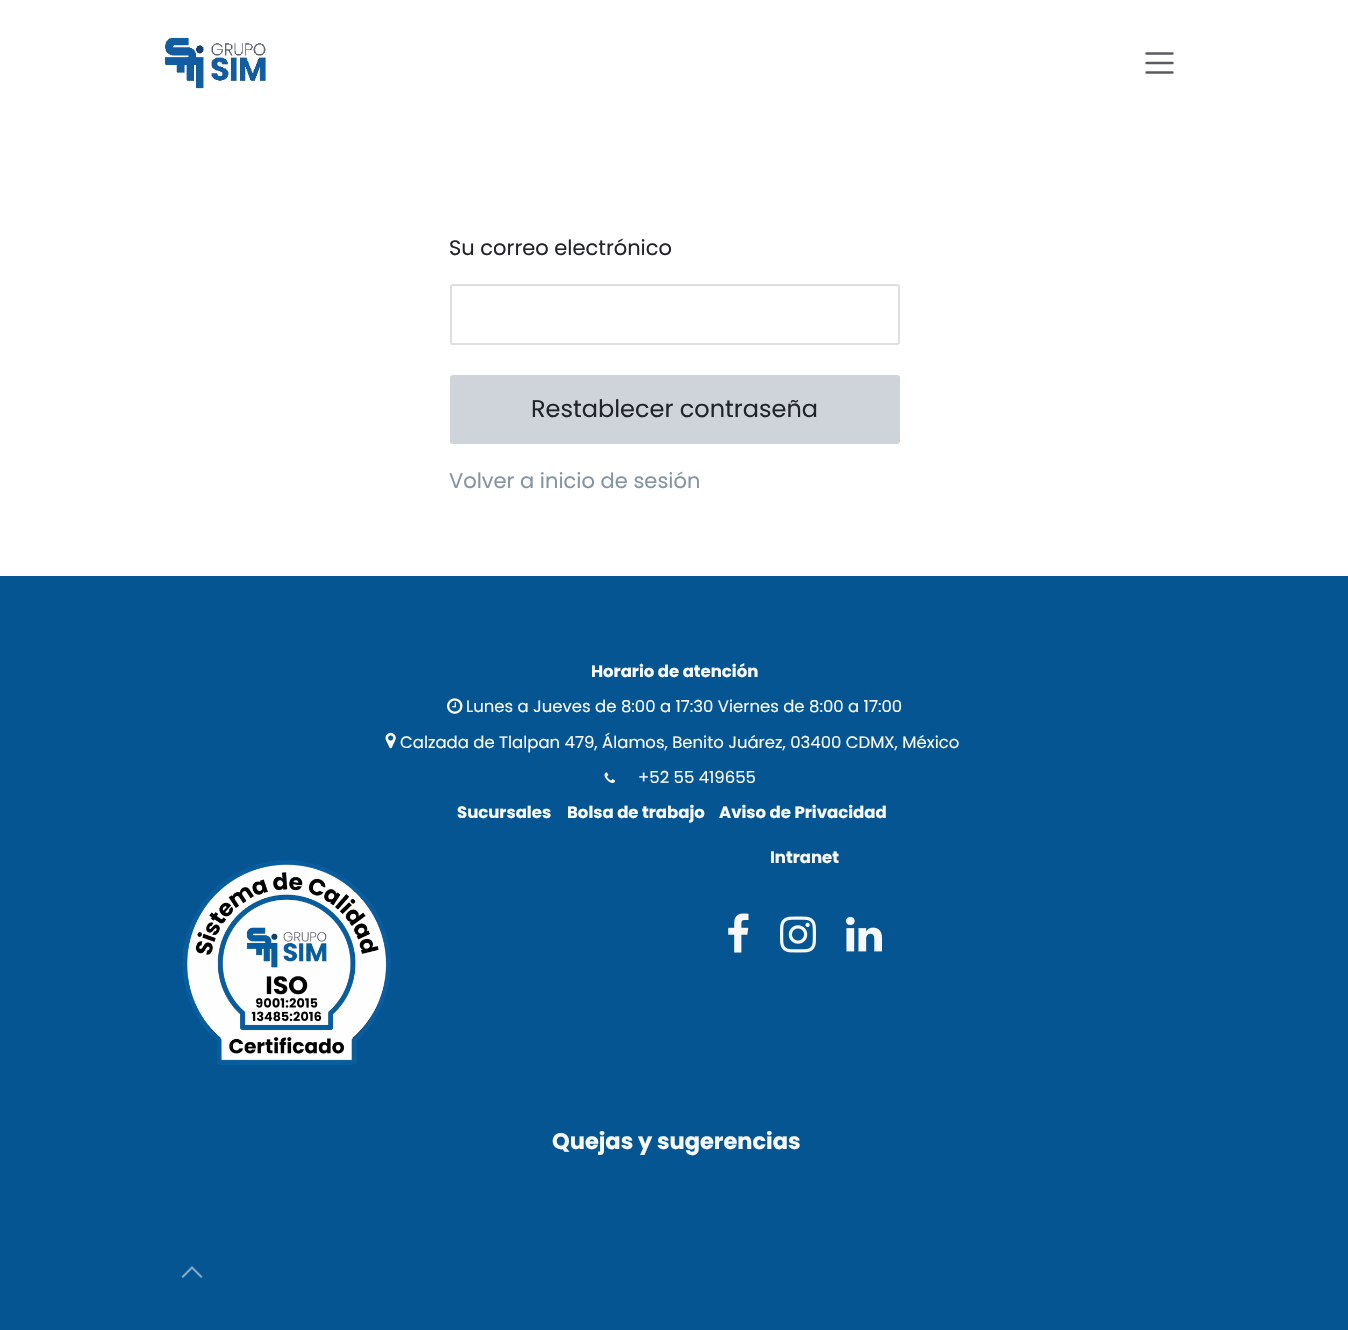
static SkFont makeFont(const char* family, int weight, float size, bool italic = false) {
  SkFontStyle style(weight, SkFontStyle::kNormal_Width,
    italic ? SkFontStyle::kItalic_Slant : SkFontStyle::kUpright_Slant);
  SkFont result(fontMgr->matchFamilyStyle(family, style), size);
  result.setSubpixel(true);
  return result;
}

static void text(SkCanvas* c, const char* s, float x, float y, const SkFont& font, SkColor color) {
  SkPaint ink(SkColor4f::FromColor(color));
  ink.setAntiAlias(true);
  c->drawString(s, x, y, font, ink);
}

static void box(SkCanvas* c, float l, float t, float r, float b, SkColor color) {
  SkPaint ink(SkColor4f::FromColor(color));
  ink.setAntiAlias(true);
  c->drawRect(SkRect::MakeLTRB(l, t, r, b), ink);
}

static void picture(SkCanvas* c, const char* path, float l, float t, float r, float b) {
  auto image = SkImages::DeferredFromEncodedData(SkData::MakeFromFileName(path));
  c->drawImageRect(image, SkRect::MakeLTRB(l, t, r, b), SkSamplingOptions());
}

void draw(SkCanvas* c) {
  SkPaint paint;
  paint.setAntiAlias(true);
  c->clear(0xffffffff);
  picture(c, "img_01.png", 165, 37, 266, 89);
  paint.setStyle(SkPaint::kStroke_Style);
  paint.setStrokeWidth(2.4f);
  paint.setStrokeCap(SkPaint::kRound_Cap);
  paint.setColor(0xff595c5f);
  c->drawPath(SkPathBuilder().moveTo(1146.5f, 53.5f).lineTo(1172.5f, 53.5f).moveTo(1146.5f, 63).lineTo(1172.5f, 63).moveTo(1146.5f, 72.5f).lineTo(1172.5f, 72.5f).detach(), paint);
  SkFont face1 = makeFont("Poppins", 400, 21);
  text(c, "Su correo electrónico", 449, 255, face1, 0xff212529);
  paint.setStrokeWidth(2);
  paint.setStrokeCap(SkPaint::kButt_Cap);
  paint.setColor(0xffdededf);
  c->drawRoundRect(SkRect::MakeLTRB(451, 285, 899, 344), 2, 2, paint);
  paint.setStyle(SkPaint::kFill_Style);
  paint.setColor(0xffced4da);
  c->drawRoundRect(SkRect::MakeLTRB(451, 376, 899, 443), 2, 2, paint);
  paint.setStyle(SkPaint::kStroke_Style);
  c->drawRoundRect(SkRect::MakeLTRB(451, 376, 899, 443), 2, 2, paint);
  SkFont face2 = makeFont("Poppins", 400, 24);
  text(c, "Restablecer contraseña", 531, 417, face2, 0xff212529);
  text(c, "Volver a inicio de sesión", 449, 488, face1, 0xff8594a3);
  box(c, 0, 576, 1348, 1330, 0xff055593);
  SkFont face3 = makeFont("Poppins", 700, 16.5f);
  text(c, "Horario de atención", 591, 677, face3, 0xfff8f9fa);
  picture(c, "img_02.png", 447, 698, 463, 714);
  SkFont face4 = makeFont("Poppins", 400, 16.5f);
  text(c, "Lunes a Jueves de 8:00 a 17:30 Viernes de 8:00 a 17:00", 466, 712, face4, 0xfff8f9fa);
  picture(c, "img_03.png", 385, 732, 396, 749);
  text(c, "Calzada de Tlalpan 479, Álamos, Benito Juárez, 03400 CDMX, México", 400, 748, face4, 0xfff8f9fa);
  picture(c, "img_04.png", 604, 772, 616, 783);
  text(c, "+52 55 419655", 638, 783, face4, 0xfff8f9fa);
  text(c, "Sucursales", 457, 818, face3, 0xfff8f9fa);
  text(c, "Bolsa de trabajo", 567, 818, face3, 0xfff8f9fa);
  text(c, "Aviso de Privacidad", 719, 818, face3, 0xfff8f9fa);
  text(c, "Intranet", 770, 863, face3, 0xfff8f9fa);
  picture(c, "img_05.png", 182, 860, 391, 1065);
  picture(c, "img_06.png", 728, 913, 749, 953);
  picture(c, "img_07.png", 780, 916, 816, 953);
  picture(c, "img_08.png", 846, 917, 882, 952);
  SkFont face5 = makeFont("Poppins", 700, 22.5f);
  text(c, "Quejas y sugerencias", 552, 1149, face5, 0xfff8f9fa);
  paint.setStyle(SkPaint::kFill_Style);
  paint.setColor(0xff82aac9);
  c->drawPath(SkPathBuilder().moveTo(192, 1266).lineTo(202.5f, 1276.5f).lineTo(201, 1278).lineTo(192, 1269).lineTo(183, 1278).lineTo(181.5f, 1276.5f).close().detach(), paint);
}
